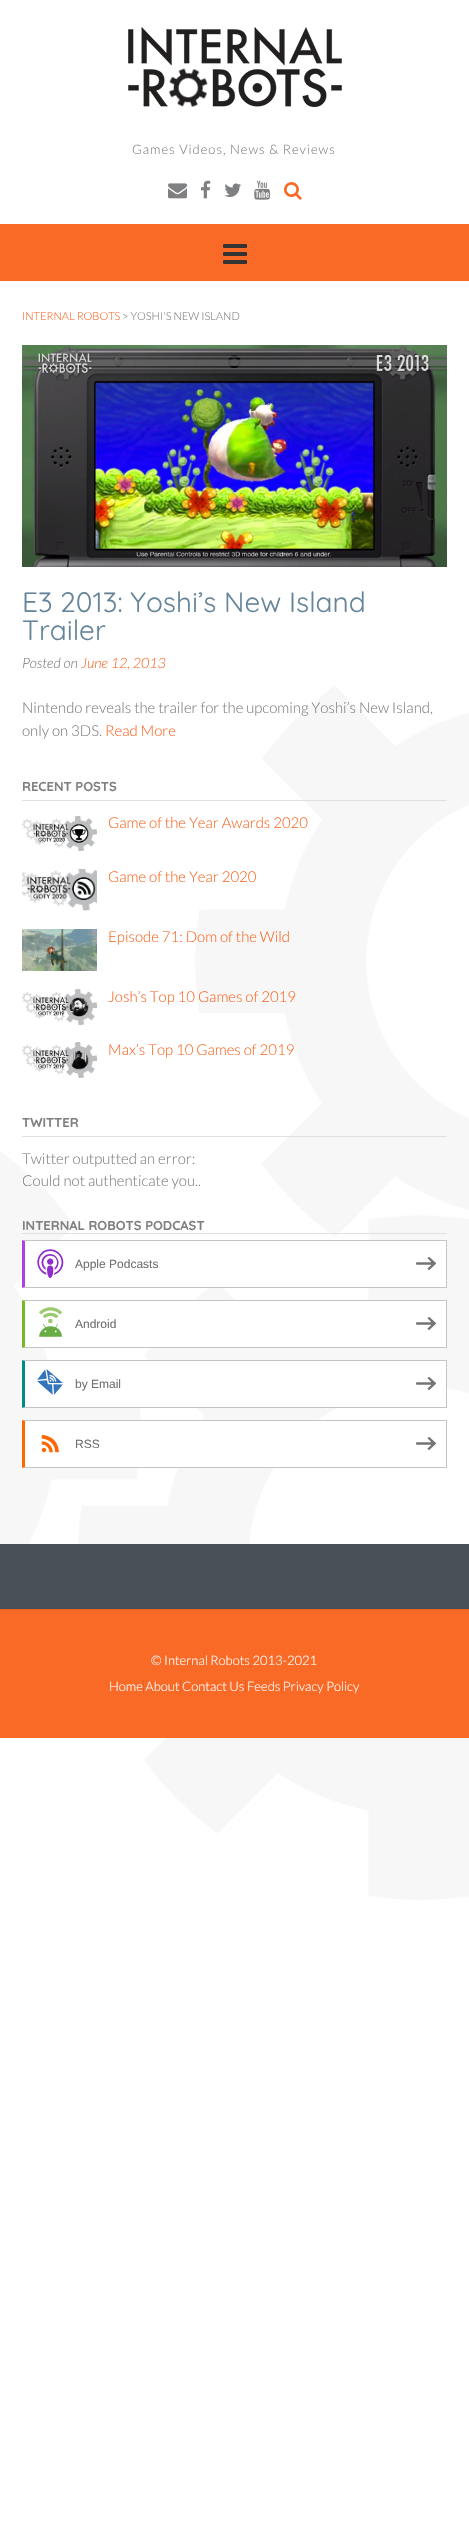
static SkFont makeFont(const char* family, int weight, float size, bool italic = false) {
  SkFontStyle style(weight, SkFontStyle::kNormal_Width,
    italic ? SkFontStyle::kItalic_Slant : SkFontStyle::kUpright_Slant);
  SkFont result(fontMgr->matchFamilyStyle(family, style), size);
  result.setSubpixel(true);
  return result;
}

static void text(SkCanvas* c, const char* s, float x, float y, const SkFont& font, SkColor color) {
  SkPaint ink(SkColor4f::FromColor(color));
  ink.setAntiAlias(true);
  c->drawString(s, x, y, font, ink);
}

static void spacedText(SkCanvas* c, const char* s, float x, float y, const SkFont& font, const SkPaint& ink, float letter, float word) {
  std::vector<SkGlyphID> glyphs(font.countText(s, strlen(s), SkTextEncoding::kUTF8));
  std::vector<float> xs(glyphs.size());
  font.textToGlyphs(s, strlen(s), SkTextEncoding::kUTF8, glyphs);
  font.getXPos(glyphs, xs, x);
  float extra = 0;
  for (size_t i = 0; i < glyphs.size(); i++) {
    xs[i] += extra;
    extra += letter + word * (glyphs[i] == font.unicharToGlyph(' '));
  }
  c->drawTextBlob(SkTextBlob::MakeFromPosHGlyphs(glyphs, xs, y, font), 0, 0, ink);
}

static void box(SkCanvas* c, float l, float t, float r, float b, SkColor color) {
  SkPaint ink(SkColor4f::FromColor(color));
  ink.setAntiAlias(true);
  c->drawRect(SkRect::MakeLTRB(l, t, r, b), ink);
}

static void picture(SkCanvas* c, const char* path, float l, float t, float r, float b) {
  auto image = SkImages::DeferredFromEncodedData(SkData::MakeFromFileName(path));
  c->drawImageRect(image, SkRect::MakeLTRB(l, t, r, b), SkSamplingOptions());
}

void draw(SkCanvas* c) {
  SkPaint paint;
  paint.setAntiAlias(true);
  c->clear(0xffffffff);
  picture(c, "img_01.png", 0, 686, 469, 1900);
  picture(c, "img_02.png", 128, 27, 342, 107);
  SkFont face1 = makeFont("Lato", 300, 13);
  paint.setColor(0xff7f8082);
  spacedText(c, "Games Videos, News & Reviews", 132, 154, face1, paint, 1, 0);
  picture(c, "img_03.png", 168, 183, 187, 199);
  picture(c, "img_04.png", 201, 180, 211, 199);
  picture(c, "img_05.png", 224, 183, 241, 197);
  picture(c, "img_06.png", 254, 180, 270, 200);
  picture(c, "img_07.png", 284, 182, 302, 200);
  box(c, 0, 224, 469, 281, 0xfff96a27);
  picture(c, "img_08.png", 223, 244, 247, 264);
  SkFont face2 = makeFont("Lato", 300, 11);
  text(c, "INTERNAL ROBOTS", 22, 320, face2, 0xfff96a27);
  text(c, "> YOSHI'S NEW ISLAND", 122, 320, face2, 0xff7f8082);
  picture(c, "img_09.png", 22, 345, 447, 567);
  SkFont face3 = makeFont("Quicksand", 400, 28);
  text(c, "E3 2013: Yoshi’s New Island", 22, 612, face3, 0xff668599);
  text(c, "Trailer", 22, 640, face3, 0xff668599);
  SkFont face4 = makeFont("Lato", 300, 14.25f, true);
  text(c, "Posted on", 22, 668, face4, 0xff7f8082);
  text(c, "June 12, 2013", 81, 668, face4, 0xfff96a27);
  SkFont face5 = makeFont("Lato", 300, 15);
  text(c, "Nintendo reveals the trailer for the upcoming Yoshi’s New Island,", 22, 713, face5, 0xff7f8082);
  text(c, "only on 3DS.", 22, 736, face5, 0xff7f8082);
  text(c, "Read More", 105, 736, face5, 0xfff96a27);
  box(c, 22, 800, 447, 801, 0xffe0e0e0);
  SkFont face6 = makeFont("Quicksand", 700, 13);
  text(c, "RECENT POSTS", 22, 791, face6, 0xff7f8082);
  picture(c, "img_10.png", 22, 816, 97, 851);
  text(c, "Game of the Year Awards 2020", 108, 828, face5, 0xfff96a27);
  picture(c, "img_11.png", 22, 869, 97, 911);
  text(c, "Game of the Year 2020", 108, 882, face5, 0xfff96a27);
  picture(c, "img_12.png", 22, 929, 97, 971);
  text(c, "Episode 71: Dom of the Wild", 108, 942, face5, 0xfff96a27);
  picture(c, "img_13.png", 22, 989, 97, 1025);
  text(c, "Josh’s Top 10 Games of 2019", 108, 1002, face5, 0xfff96a27);
  picture(c, "img_14.png", 22, 1042, 97, 1078);
  text(c, "Max’s Top 10 Games of 2019", 108, 1055, face5, 0xfff96a27);
  box(c, 22, 1136, 447, 1137, 0xffe0e0e0);
  text(c, "TWITTER", 22, 1127, face6, 0xff7f8082);
  text(c, "Twitter outputted an error:", 22, 1164, face5, 0xff7f8082);
  text(c, "Could not authenticate you..", 22, 1186, face5, 0xff7f8082);
  box(c, 22, 1233, 447, 1234, 0xffe0e0e0);
  text(c, "INTERNAL ROBOTS PODCAST", 22, 1230, face6, 0xff7f8082);
  box(c, 25, 1241, 446, 1287, 0xffffffff);
  paint.setColor(0xffc4c4c4);
  c->drawPath(SkPathBuilder().moveTo(22, 1240).lineTo(447, 1240).lineTo(446, 1241).lineTo(25, 1241).close().detach(), paint);
  box(c, 446, 1240, 447, 1288, 0xffc4c4c4);
  c->drawPath(SkPathBuilder().moveTo(447, 1288).lineTo(22, 1288).lineTo(25, 1287).lineTo(446, 1287).close().detach(), paint);
  paint.setColor(0xffab42df);
  c->drawPath(SkPathBuilder().moveTo(22, 1288).lineTo(22, 1240).lineTo(25, 1241).lineTo(25, 1287).close().detach(), paint);
  picture(c, "img_15.png", 37, 1249, 64, 1278);
  SkFont face7 = makeFont("Liberation Sans", 400, 12);
  text(c, "Apple Podcasts", 75, 1268, face7, 0xff707070);
  picture(c, "img_16.png", 416, 1257, 436, 1270);
  box(c, 25, 1301, 446, 1347, 0xffffffff);
  paint.setColor(0xffc4c4c4);
  c->drawPath(SkPathBuilder().moveTo(22, 1300).lineTo(447, 1300).lineTo(446, 1301).lineTo(25, 1301).close().detach(), paint);
  box(c, 446, 1300, 447, 1348, 0xffc4c4c4);
  c->drawPath(SkPathBuilder().moveTo(447, 1348).lineTo(22, 1348).lineTo(25, 1347).lineTo(446, 1347).close().detach(), paint);
  paint.setColor(0xff75ba26);
  c->drawPath(SkPathBuilder().moveTo(22, 1348).lineTo(22, 1300).lineTo(25, 1301).lineTo(25, 1347).close().detach(), paint);
  picture(c, "img_17.png", 39, 1307, 63, 1337);
  text(c, "Android", 75, 1328, face7, 0xff707070);
  picture(c, "img_16.png", 416, 1317, 436, 1330);
  box(c, 25, 1361, 446, 1407, 0xffffffff);
  paint.setColor(0xffc4c4c4);
  c->drawPath(SkPathBuilder().moveTo(22, 1360).lineTo(447, 1360).lineTo(446, 1361).lineTo(25, 1361).close().detach(), paint);
  box(c, 446, 1360, 447, 1408, 0xffc4c4c4);
  c->drawPath(SkPathBuilder().moveTo(447, 1408).lineTo(22, 1408).lineTo(25, 1407).lineTo(446, 1407).close().detach(), paint);
  paint.setColor(0xff018c8b);
  c->drawPath(SkPathBuilder().moveTo(22, 1408).lineTo(22, 1360).lineTo(25, 1361).lineTo(25, 1407).close().detach(), paint);
  picture(c, "img_18.png", 37, 1369, 63, 1395);
  text(c, "by Email", 75, 1388, face7, 0xff707070);
  picture(c, "img_16.png", 416, 1377, 436, 1390);
  box(c, 25, 1421, 317, 1467, 0xffffffff);
  paint.setColor(0xffc4c4c4);
  c->drawPath(SkPathBuilder().moveTo(22, 1420).lineTo(447, 1420).lineTo(446, 1421).lineTo(25, 1421).close().detach(), paint);
  box(c, 446, 1420, 447, 1468, 0xffc4c4c4);
  c->drawPath(SkPathBuilder().moveTo(447, 1468).lineTo(22, 1468).lineTo(25, 1467).lineTo(446, 1467).close().detach(), paint);
  paint.setColor(0xffff6600);
  c->drawPath(SkPathBuilder().moveTo(22, 1468).lineTo(22, 1420).lineTo(25, 1421).lineTo(25, 1467).close().detach(), paint);
  picture(c, "img_19.png", 41, 1435, 59, 1453);
  text(c, "RSS", 75, 1448, face7, 0xff707070);
  picture(c, "img_16.png", 416, 1437, 436, 1450);
  box(c, 0, 1544, 469, 1609, 0xff465056);
  box(c, 0, 1610, 469, 1738, 0xfff96a27);
  box(c, 0, 1609, 469, 1610, 0xffe56224);
  text(c, "© Internal Robots 2013-2021", 151, 1665, face1, 0xffffffff);
  box(c, 143, 1680, 144, 1693, 0xffe56224);
  text(c, "Home About Contact Us Feeds Privacy Policy", 109, 1691, face1, 0xffffffff);
  box(c, 180, 1680, 181, 1693, 0xffe56224);
  box(c, 245, 1680, 246, 1693, 0xffe56224);
  box(c, 281, 1680, 282, 1693, 0xffe56224);
}
